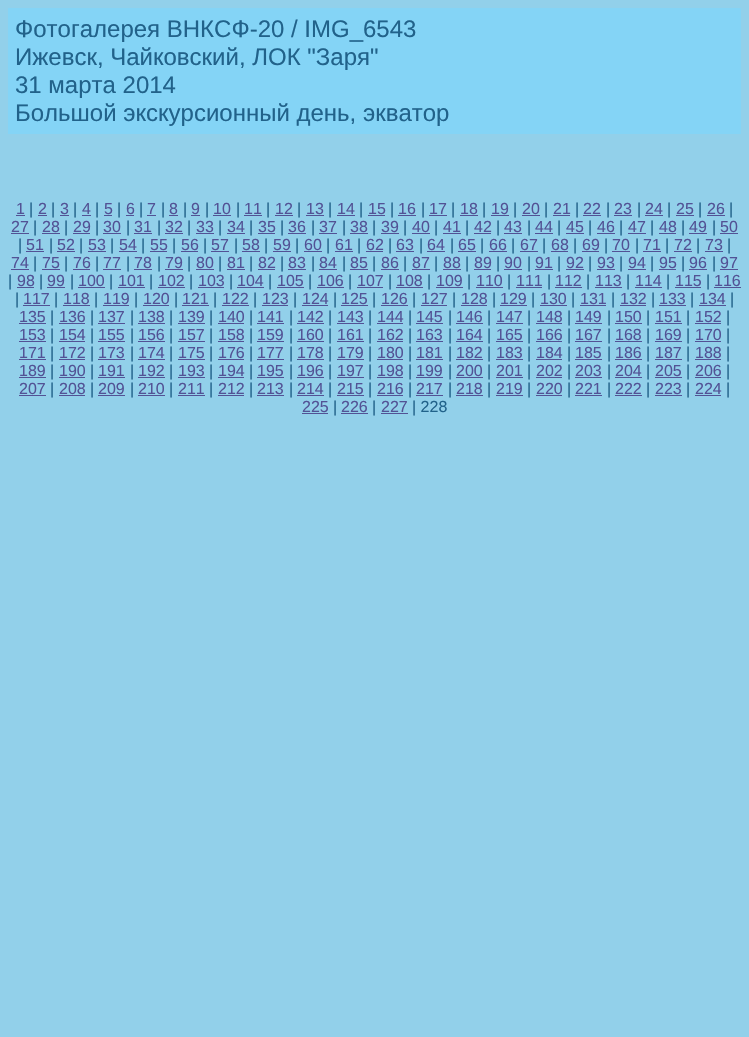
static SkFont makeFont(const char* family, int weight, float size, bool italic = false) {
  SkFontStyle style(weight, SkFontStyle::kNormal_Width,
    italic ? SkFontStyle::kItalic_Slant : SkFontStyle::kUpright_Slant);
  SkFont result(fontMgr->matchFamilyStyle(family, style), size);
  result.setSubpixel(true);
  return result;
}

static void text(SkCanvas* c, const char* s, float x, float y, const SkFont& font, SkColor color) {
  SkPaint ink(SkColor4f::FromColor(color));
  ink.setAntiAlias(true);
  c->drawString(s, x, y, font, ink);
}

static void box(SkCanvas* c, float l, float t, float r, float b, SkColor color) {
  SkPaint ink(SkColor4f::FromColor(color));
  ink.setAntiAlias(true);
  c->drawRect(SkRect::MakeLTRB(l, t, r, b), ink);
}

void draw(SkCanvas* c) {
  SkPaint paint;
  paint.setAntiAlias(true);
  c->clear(0xff92d0ea);
  box(c, 8, 8, 741, 134, 0xff84d4f6);
  SkFont face1 = makeFont("Liberation Sans", 400, 24);
  text(c, "Фотогалерея ВНКСФ-20 / IMG_6543", 15, 37, face1, 0xff21628a);
  text(c, "Ижевск, Чайковский, ЛОК \"Заря\"", 15, 65, face1, 0xff21628a);
  text(c, "31 марта 2014", 15, 93, face1, 0xff21628a);
  text(c, "Большой экскурсионный день, экватор", 15, 121, face1, 0xff21628a);
  SkFont face2 = makeFont("Liberation Sans", 400, 16);
  text(c, "1", 16, 214, face2, 0xff525295);
  box(c, 16, 215, 25, 216, 0xff525295);
  text(c, "|", 29, 214, face2, 0xff21628a);
  text(c, "2", 38, 214, face2, 0xff525295);
  box(c, 38, 215, 47, 216, 0xff525295);
  text(c, "|", 51, 214, face2, 0xff21628a);
  text(c, "3", 60, 214, face2, 0xff525295);
  box(c, 60, 215, 69, 216, 0xff525295);
  text(c, "|", 73, 214, face2, 0xff21628a);
  text(c, "4", 82, 214, face2, 0xff525295);
  box(c, 82, 215, 91, 216, 0xff525295);
  text(c, "|", 95, 214, face2, 0xff21628a);
  text(c, "5", 104, 214, face2, 0xff525295);
  box(c, 104, 215, 112, 216, 0xff525295);
  text(c, "|", 117, 214, face2, 0xff21628a);
  text(c, "6", 126, 214, face2, 0xff525295);
  box(c, 126, 215, 134, 216, 0xff525295);
  text(c, "|", 139, 214, face2, 0xff21628a);
  text(c, "7", 147, 214, face2, 0xff525295);
  box(c, 147, 215, 156, 216, 0xff525295);
  text(c, "|", 161, 214, face2, 0xff21628a);
  text(c, "8", 169, 214, face2, 0xff525295);
  box(c, 169, 215, 178, 216, 0xff525295);
  text(c, "|", 183, 214, face2, 0xff21628a);
  text(c, "9", 191, 214, face2, 0xff525295);
  box(c, 191, 215, 200, 216, 0xff525295);
  text(c, "|", 205, 214, face2, 0xff21628a);
  text(c, "10", 213, 214, face2, 0xff525295);
  box(c, 213, 215, 231, 216, 0xff525295);
  text(c, "|", 236, 214, face2, 0xff21628a);
  text(c, "11", 244, 214, face2, 0xff525295);
  box(c, 244, 215, 262, 216, 0xff525295);
  text(c, "|", 266, 214, face2, 0xff21628a);
  text(c, "12", 275, 214, face2, 0xff525295);
  box(c, 275, 215, 293, 216, 0xff525295);
  text(c, "|", 297, 214, face2, 0xff21628a);
  text(c, "13", 306, 214, face2, 0xff525295);
  box(c, 306, 215, 324, 216, 0xff525295);
  text(c, "|", 328, 214, face2, 0xff21628a);
  text(c, "14", 337, 214, face2, 0xff525295);
  box(c, 337, 215, 355, 216, 0xff525295);
  text(c, "|", 359, 214, face2, 0xff21628a);
  text(c, "15", 368, 214, face2, 0xff525295);
  box(c, 368, 215, 385, 216, 0xff525295);
  text(c, "|", 390, 214, face2, 0xff21628a);
  text(c, "16", 398, 214, face2, 0xff525295);
  box(c, 398, 215, 416, 216, 0xff525295);
  text(c, "|", 421, 214, face2, 0xff21628a);
  text(c, "17", 429, 214, face2, 0xff525295);
  box(c, 429, 215, 447, 216, 0xff525295);
  text(c, "|", 451, 214, face2, 0xff21628a);
  text(c, "18", 460, 214, face2, 0xff525295);
  box(c, 460, 215, 478, 216, 0xff525295);
  text(c, "|", 482, 214, face2, 0xff21628a);
  text(c, "19", 491, 214, face2, 0xff525295);
  box(c, 491, 215, 509, 216, 0xff525295);
  text(c, "|", 513, 214, face2, 0xff21628a);
  text(c, "20", 522, 214, face2, 0xff525295);
  box(c, 522, 215, 540, 216, 0xff525295);
  text(c, "|", 544, 214, face2, 0xff21628a);
  text(c, "21", 553, 214, face2, 0xff525295);
  box(c, 553, 215, 570, 216, 0xff525295);
  text(c, "|", 575, 214, face2, 0xff21628a);
  text(c, "22", 583, 214, face2, 0xff525295);
  box(c, 583, 215, 601, 216, 0xff525295);
  text(c, "|", 606, 214, face2, 0xff21628a);
  text(c, "23", 614, 214, face2, 0xff525295);
  box(c, 614, 215, 632, 216, 0xff525295);
  text(c, "|", 637, 214, face2, 0xff21628a);
  text(c, "24", 645, 214, face2, 0xff525295);
  box(c, 645, 215, 663, 216, 0xff525295);
  text(c, "|", 667, 214, face2, 0xff21628a);
  text(c, "25", 676, 214, face2, 0xff525295);
  box(c, 676, 215, 694, 216, 0xff525295);
  text(c, "|", 698, 214, face2, 0xff21628a);
  text(c, "26", 707, 214, face2, 0xff525295);
  box(c, 707, 215, 725, 216, 0xff525295);
  text(c, "|", 729, 214, face2, 0xff21628a);
  text(c, "27", 11, 232, face2, 0xff525295);
  box(c, 11, 233, 29, 234, 0xff525295);
  text(c, "|", 33, 232, face2, 0xff21628a);
  text(c, "28", 42, 232, face2, 0xff525295);
  box(c, 42, 233, 60, 234, 0xff525295);
  text(c, "|", 64, 232, face2, 0xff21628a);
  text(c, "29", 73, 232, face2, 0xff525295);
  box(c, 73, 233, 90, 234, 0xff525295);
  text(c, "|", 95, 232, face2, 0xff21628a);
  text(c, "30", 103, 232, face2, 0xff525295);
  box(c, 103, 233, 121, 234, 0xff525295);
  text(c, "|", 126, 232, face2, 0xff21628a);
  text(c, "31", 134, 232, face2, 0xff525295);
  box(c, 134, 233, 152, 234, 0xff525295);
  text(c, "|", 157, 232, face2, 0xff21628a);
  text(c, "32", 165, 232, face2, 0xff525295);
  box(c, 165, 233, 183, 234, 0xff525295);
  text(c, "|", 187, 232, face2, 0xff21628a);
  text(c, "33", 196, 232, face2, 0xff525295);
  box(c, 196, 233, 214, 234, 0xff525295);
  text(c, "|", 218, 232, face2, 0xff21628a);
  text(c, "34", 227, 232, face2, 0xff525295);
  box(c, 227, 233, 245, 234, 0xff525295);
  text(c, "|", 249, 232, face2, 0xff21628a);
  text(c, "35", 258, 232, face2, 0xff525295);
  box(c, 258, 233, 275, 234, 0xff525295);
  text(c, "|", 280, 232, face2, 0xff21628a);
  text(c, "36", 288, 232, face2, 0xff525295);
  box(c, 288, 233, 306, 234, 0xff525295);
  text(c, "|", 311, 232, face2, 0xff21628a);
  text(c, "37", 319, 232, face2, 0xff525295);
  box(c, 319, 233, 337, 234, 0xff525295);
  text(c, "|", 342, 232, face2, 0xff21628a);
  text(c, "38", 350, 232, face2, 0xff525295);
  box(c, 350, 233, 368, 234, 0xff525295);
  text(c, "|", 372, 232, face2, 0xff21628a);
  text(c, "39", 381, 232, face2, 0xff525295);
  box(c, 381, 233, 399, 234, 0xff525295);
  text(c, "|", 403, 232, face2, 0xff21628a);
  text(c, "40", 412, 232, face2, 0xff525295);
  box(c, 412, 233, 430, 234, 0xff525295);
  text(c, "|", 434, 232, face2, 0xff21628a);
  text(c, "41", 443, 232, face2, 0xff525295);
  box(c, 443, 233, 461, 234, 0xff525295);
  text(c, "|", 465, 232, face2, 0xff21628a);
  text(c, "42", 474, 232, face2, 0xff525295);
  box(c, 474, 233, 491, 234, 0xff525295);
  text(c, "|", 496, 232, face2, 0xff21628a);
  text(c, "43", 504, 232, face2, 0xff525295);
  box(c, 504, 233, 522, 234, 0xff525295);
  text(c, "|", 527, 232, face2, 0xff21628a);
  text(c, "44", 535, 232, face2, 0xff525295);
  box(c, 535, 233, 553, 234, 0xff525295);
  text(c, "|", 557, 232, face2, 0xff21628a);
  text(c, "45", 566, 232, face2, 0xff525295);
  box(c, 566, 233, 584, 234, 0xff525295);
  text(c, "|", 588, 232, face2, 0xff21628a);
  text(c, "46", 597, 232, face2, 0xff525295);
  box(c, 597, 233, 615, 234, 0xff525295);
  text(c, "|", 619, 232, face2, 0xff21628a);
  text(c, "47", 628, 232, face2, 0xff525295);
  box(c, 628, 233, 646, 234, 0xff525295);
  text(c, "|", 650, 232, face2, 0xff21628a);
  text(c, "48", 659, 232, face2, 0xff525295);
  box(c, 659, 233, 676, 234, 0xff525295);
  text(c, "|", 681, 232, face2, 0xff21628a);
  text(c, "49", 689, 232, face2, 0xff525295);
  box(c, 689, 233, 707, 234, 0xff525295);
  text(c, "|", 712, 232, face2, 0xff21628a);
  text(c, "50", 720, 232, face2, 0xff525295);
  box(c, 720, 233, 738, 234, 0xff525295);
  text(c, "|", 18, 250, face2, 0xff21628a);
  text(c, "51", 26, 250, face2, 0xff525295);
  box(c, 26, 251, 44, 252, 0xff525295);
  text(c, "|", 49, 250, face2, 0xff21628a);
  text(c, "52", 57, 250, face2, 0xff525295);
  box(c, 57, 251, 75, 252, 0xff525295);
  text(c, "|", 79, 250, face2, 0xff21628a);
  text(c, "53", 88, 250, face2, 0xff525295);
  box(c, 88, 251, 106, 252, 0xff525295);
  text(c, "|", 110, 250, face2, 0xff21628a);
  text(c, "54", 119, 250, face2, 0xff525295);
  box(c, 119, 251, 137, 252, 0xff525295);
  text(c, "|", 141, 250, face2, 0xff21628a);
  text(c, "55", 150, 250, face2, 0xff525295);
  box(c, 150, 251, 167, 252, 0xff525295);
  text(c, "|", 172, 250, face2, 0xff21628a);
  text(c, "56", 181, 250, face2, 0xff525295);
  box(c, 181, 251, 198, 252, 0xff525295);
  text(c, "|", 203, 250, face2, 0xff21628a);
  text(c, "57", 211, 250, face2, 0xff525295);
  box(c, 211, 251, 229, 252, 0xff525295);
  text(c, "|", 234, 250, face2, 0xff21628a);
  text(c, "58", 242, 250, face2, 0xff525295);
  box(c, 242, 251, 260, 252, 0xff525295);
  text(c, "|", 264, 250, face2, 0xff21628a);
  text(c, "59", 273, 250, face2, 0xff525295);
  box(c, 273, 251, 291, 252, 0xff525295);
  text(c, "|", 295, 250, face2, 0xff21628a);
  text(c, "60", 304, 250, face2, 0xff525295);
  box(c, 304, 251, 322, 252, 0xff525295);
  text(c, "|", 326, 250, face2, 0xff21628a);
  text(c, "61", 335, 250, face2, 0xff525295);
  box(c, 335, 251, 353, 252, 0xff525295);
  text(c, "|", 357, 250, face2, 0xff21628a);
  text(c, "62", 366, 250, face2, 0xff525295);
  box(c, 366, 251, 383, 252, 0xff525295);
  text(c, "|", 388, 250, face2, 0xff21628a);
  text(c, "63", 396, 250, face2, 0xff525295);
  box(c, 396, 251, 414, 252, 0xff525295);
  text(c, "|", 419, 250, face2, 0xff21628a);
  text(c, "64", 427, 250, face2, 0xff525295);
  box(c, 427, 251, 445, 252, 0xff525295);
  text(c, "|", 450, 250, face2, 0xff21628a);
  text(c, "65", 458, 250, face2, 0xff525295);
  box(c, 458, 251, 476, 252, 0xff525295);
  text(c, "|", 480, 250, face2, 0xff21628a);
  text(c, "66", 489, 250, face2, 0xff525295);
  box(c, 489, 251, 507, 252, 0xff525295);
  text(c, "|", 511, 250, face2, 0xff21628a);
  text(c, "67", 520, 250, face2, 0xff525295);
  box(c, 520, 251, 538, 252, 0xff525295);
  text(c, "|", 542, 250, face2, 0xff21628a);
  text(c, "68", 551, 250, face2, 0xff525295);
  box(c, 551, 251, 568, 252, 0xff525295);
  text(c, "|", 573, 250, face2, 0xff21628a);
  text(c, "69", 582, 250, face2, 0xff525295);
  box(c, 582, 251, 599, 252, 0xff525295);
  text(c, "|", 604, 250, face2, 0xff21628a);
  text(c, "70", 612, 250, face2, 0xff525295);
  box(c, 612, 251, 630, 252, 0xff525295);
  text(c, "|", 635, 250, face2, 0xff21628a);
  text(c, "71", 643, 250, face2, 0xff525295);
  box(c, 643, 251, 661, 252, 0xff525295);
  text(c, "|", 665, 250, face2, 0xff21628a);
  text(c, "72", 674, 250, face2, 0xff525295);
  box(c, 674, 251, 692, 252, 0xff525295);
  text(c, "|", 696, 250, face2, 0xff21628a);
  text(c, "73", 705, 250, face2, 0xff525295);
  box(c, 705, 251, 723, 252, 0xff525295);
  text(c, "|", 727, 250, face2, 0xff21628a);
  text(c, "74", 11, 268, face2, 0xff525295);
  box(c, 11, 269, 29, 270, 0xff525295);
  text(c, "|", 33, 268, face2, 0xff21628a);
  text(c, "75", 42, 268, face2, 0xff525295);
  box(c, 42, 269, 60, 270, 0xff525295);
  text(c, "|", 64, 268, face2, 0xff21628a);
  text(c, "76", 73, 268, face2, 0xff525295);
  box(c, 73, 269, 90, 270, 0xff525295);
  text(c, "|", 95, 268, face2, 0xff21628a);
  text(c, "77", 103, 268, face2, 0xff525295);
  box(c, 103, 269, 121, 270, 0xff525295);
  text(c, "|", 126, 268, face2, 0xff21628a);
  text(c, "78", 134, 268, face2, 0xff525295);
  box(c, 134, 269, 152, 270, 0xff525295);
  text(c, "|", 157, 268, face2, 0xff21628a);
  text(c, "79", 165, 268, face2, 0xff525295);
  box(c, 165, 269, 183, 270, 0xff525295);
  text(c, "|", 187, 268, face2, 0xff21628a);
  text(c, "80", 196, 268, face2, 0xff525295);
  box(c, 196, 269, 214, 270, 0xff525295);
  text(c, "|", 218, 268, face2, 0xff21628a);
  text(c, "81", 227, 268, face2, 0xff525295);
  box(c, 227, 269, 245, 270, 0xff525295);
  text(c, "|", 249, 268, face2, 0xff21628a);
  text(c, "82", 258, 268, face2, 0xff525295);
  box(c, 258, 269, 275, 270, 0xff525295);
  text(c, "|", 280, 268, face2, 0xff21628a);
  text(c, "83", 288, 268, face2, 0xff525295);
  box(c, 288, 269, 306, 270, 0xff525295);
  text(c, "|", 311, 268, face2, 0xff21628a);
  text(c, "84", 319, 268, face2, 0xff525295);
  box(c, 319, 269, 337, 270, 0xff525295);
  text(c, "|", 342, 268, face2, 0xff21628a);
  text(c, "85", 350, 268, face2, 0xff525295);
  box(c, 350, 269, 368, 270, 0xff525295);
  text(c, "|", 372, 268, face2, 0xff21628a);
  text(c, "86", 381, 268, face2, 0xff525295);
  box(c, 381, 269, 399, 270, 0xff525295);
  text(c, "|", 403, 268, face2, 0xff21628a);
  text(c, "87", 412, 268, face2, 0xff525295);
  box(c, 412, 269, 430, 270, 0xff525295);
  text(c, "|", 434, 268, face2, 0xff21628a);
  text(c, "88", 443, 268, face2, 0xff525295);
  box(c, 443, 269, 461, 270, 0xff525295);
  text(c, "|", 465, 268, face2, 0xff21628a);
  text(c, "89", 474, 268, face2, 0xff525295);
  box(c, 474, 269, 491, 270, 0xff525295);
  text(c, "|", 496, 268, face2, 0xff21628a);
  text(c, "90", 504, 268, face2, 0xff525295);
  box(c, 504, 269, 522, 270, 0xff525295);
  text(c, "|", 527, 268, face2, 0xff21628a);
  text(c, "91", 535, 268, face2, 0xff525295);
  box(c, 535, 269, 553, 270, 0xff525295);
  text(c, "|", 557, 268, face2, 0xff21628a);
  text(c, "92", 566, 268, face2, 0xff525295);
  box(c, 566, 269, 584, 270, 0xff525295);
  text(c, "|", 588, 268, face2, 0xff21628a);
  text(c, "93", 597, 268, face2, 0xff525295);
  box(c, 597, 269, 615, 270, 0xff525295);
  text(c, "|", 619, 268, face2, 0xff21628a);
  text(c, "94", 628, 268, face2, 0xff525295);
  box(c, 628, 269, 646, 270, 0xff525295);
  text(c, "|", 650, 268, face2, 0xff21628a);
  text(c, "95", 659, 268, face2, 0xff525295);
  box(c, 659, 269, 676, 270, 0xff525295);
  text(c, "|", 681, 268, face2, 0xff21628a);
  text(c, "96", 689, 268, face2, 0xff525295);
  box(c, 689, 269, 707, 270, 0xff525295);
  text(c, "|", 712, 268, face2, 0xff21628a);
  text(c, "97", 720, 268, face2, 0xff525295);
  box(c, 720, 269, 738, 270, 0xff525295);
  text(c, "|", 8, 286, face2, 0xff21628a);
  text(c, "98", 17, 286, face2, 0xff525295);
  box(c, 17, 287, 34, 288, 0xff525295);
  text(c, "|", 39, 286, face2, 0xff21628a);
  text(c, "99", 47, 286, face2, 0xff525295);
  box(c, 47, 287, 65, 288, 0xff525295);
  text(c, "|", 70, 286, face2, 0xff21628a);
  text(c, "100", 78, 286, face2, 0xff525295);
  box(c, 78, 287, 105, 288, 0xff525295);
  text(c, "|", 109, 286, face2, 0xff21628a);
  text(c, "101", 118, 286, face2, 0xff525295);
  box(c, 118, 287, 145, 288, 0xff525295);
  text(c, "|", 149, 286, face2, 0xff21628a);
  text(c, "102", 158, 286, face2, 0xff525295);
  box(c, 158, 287, 185, 288, 0xff525295);
  text(c, "|", 189, 286, face2, 0xff21628a);
  text(c, "103", 198, 286, face2, 0xff525295);
  box(c, 198, 287, 224, 288, 0xff525295);
  text(c, "|", 229, 286, face2, 0xff21628a);
  text(c, "104", 237, 286, face2, 0xff525295);
  box(c, 237, 287, 264, 288, 0xff525295);
  text(c, "|", 268, 286, face2, 0xff21628a);
  text(c, "105", 277, 286, face2, 0xff525295);
  box(c, 277, 287, 304, 288, 0xff525295);
  text(c, "|", 308, 286, face2, 0xff21628a);
  text(c, "106", 317, 286, face2, 0xff525295);
  box(c, 317, 287, 344, 288, 0xff525295);
  text(c, "|", 348, 286, face2, 0xff21628a);
  text(c, "107", 357, 286, face2, 0xff525295);
  box(c, 357, 287, 383, 288, 0xff525295);
  text(c, "|", 388, 286, face2, 0xff21628a);
  text(c, "108", 396, 286, face2, 0xff525295);
  box(c, 396, 287, 423, 288, 0xff525295);
  text(c, "|", 427, 286, face2, 0xff21628a);
  text(c, "109", 436, 286, face2, 0xff525295);
  box(c, 436, 287, 463, 288, 0xff525295);
  text(c, "|", 467, 286, face2, 0xff21628a);
  text(c, "110", 476, 286, face2, 0xff525295);
  box(c, 476, 287, 503, 288, 0xff525295);
  text(c, "|", 507, 286, face2, 0xff21628a);
  text(c, "111", 516, 286, face2, 0xff525295);
  box(c, 516, 287, 542, 288, 0xff525295);
  text(c, "|", 547, 286, face2, 0xff21628a);
  text(c, "112", 555, 286, face2, 0xff525295);
  box(c, 555, 287, 582, 288, 0xff525295);
  text(c, "|", 586, 286, face2, 0xff21628a);
  text(c, "113", 595, 286, face2, 0xff525295);
  box(c, 595, 287, 622, 288, 0xff525295);
  text(c, "|", 626, 286, face2, 0xff21628a);
  text(c, "114", 635, 286, face2, 0xff525295);
  box(c, 635, 287, 662, 288, 0xff525295);
  text(c, "|", 666, 286, face2, 0xff21628a);
  text(c, "115", 675, 286, face2, 0xff525295);
  box(c, 675, 287, 701, 288, 0xff525295);
  text(c, "|", 706, 286, face2, 0xff21628a);
  text(c, "116", 714, 286, face2, 0xff525295);
  box(c, 714, 287, 741, 288, 0xff525295);
  text(c, "|", 15, 304, face2, 0xff21628a);
  text(c, "117", 23, 304, face2, 0xff525295);
  box(c, 23, 305, 50, 306, 0xff525295);
  text(c, "|", 54, 304, face2, 0xff21628a);
  text(c, "118", 63, 304, face2, 0xff525295);
  box(c, 63, 305, 90, 306, 0xff525295);
  text(c, "|", 94, 304, face2, 0xff21628a);
  text(c, "119", 103, 304, face2, 0xff525295);
  box(c, 103, 305, 129, 306, 0xff525295);
  text(c, "|", 134, 304, face2, 0xff21628a);
  text(c, "120", 143, 304, face2, 0xff525295);
  box(c, 143, 305, 169, 306, 0xff525295);
  text(c, "|", 174, 304, face2, 0xff21628a);
  text(c, "121", 182, 304, face2, 0xff525295);
  box(c, 182, 305, 209, 306, 0xff525295);
  text(c, "|", 213, 304, face2, 0xff21628a);
  text(c, "122", 222, 304, face2, 0xff525295);
  box(c, 222, 305, 249, 306, 0xff525295);
  text(c, "|", 253, 304, face2, 0xff21628a);
  text(c, "123", 262, 304, face2, 0xff525295);
  box(c, 262, 305, 288, 306, 0xff525295);
  text(c, "|", 293, 304, face2, 0xff21628a);
  text(c, "124", 302, 304, face2, 0xff525295);
  box(c, 302, 305, 328, 306, 0xff525295);
  text(c, "|", 333, 304, face2, 0xff21628a);
  text(c, "125", 341, 304, face2, 0xff525295);
  box(c, 341, 305, 368, 306, 0xff525295);
  text(c, "|", 372, 304, face2, 0xff21628a);
  text(c, "126", 381, 304, face2, 0xff525295);
  box(c, 381, 305, 408, 306, 0xff525295);
  text(c, "|", 412, 304, face2, 0xff21628a);
  text(c, "127", 421, 304, face2, 0xff525295);
  box(c, 421, 305, 447, 306, 0xff525295);
  text(c, "|", 452, 304, face2, 0xff21628a);
  text(c, "128", 461, 304, face2, 0xff525295);
  box(c, 461, 305, 487, 306, 0xff525295);
  text(c, "|", 492, 304, face2, 0xff21628a);
  text(c, "129", 500, 304, face2, 0xff525295);
  box(c, 500, 305, 527, 306, 0xff525295);
  text(c, "|", 531, 304, face2, 0xff21628a);
  text(c, "130", 540, 304, face2, 0xff525295);
  box(c, 540, 305, 567, 306, 0xff525295);
  text(c, "|", 571, 304, face2, 0xff21628a);
  text(c, "131", 580, 304, face2, 0xff525295);
  box(c, 580, 305, 606, 306, 0xff525295);
  text(c, "|", 611, 304, face2, 0xff21628a);
  text(c, "132", 620, 304, face2, 0xff525295);
  box(c, 620, 305, 646, 306, 0xff525295);
  text(c, "|", 651, 304, face2, 0xff21628a);
  text(c, "133", 659, 304, face2, 0xff525295);
  box(c, 659, 305, 686, 306, 0xff525295);
  text(c, "|", 690, 304, face2, 0xff21628a);
  text(c, "134", 699, 304, face2, 0xff525295);
  box(c, 699, 305, 726, 306, 0xff525295);
  text(c, "|", 730, 304, face2, 0xff21628a);
  text(c, "135", 19, 322, face2, 0xff525295);
  box(c, 19, 323, 46, 324, 0xff525295);
  text(c, "|", 50, 322, face2, 0xff21628a);
  text(c, "136", 59, 322, face2, 0xff525295);
  box(c, 59, 323, 85, 324, 0xff525295);
  text(c, "|", 90, 322, face2, 0xff21628a);
  text(c, "137", 98, 322, face2, 0xff525295);
  box(c, 98, 323, 125, 324, 0xff525295);
  text(c, "|", 130, 322, face2, 0xff21628a);
  text(c, "138", 138, 322, face2, 0xff525295);
  box(c, 138, 323, 165, 324, 0xff525295);
  text(c, "|", 169, 322, face2, 0xff21628a);
  text(c, "139", 178, 322, face2, 0xff525295);
  box(c, 178, 323, 205, 324, 0xff525295);
  text(c, "|", 209, 322, face2, 0xff21628a);
  text(c, "140", 218, 322, face2, 0xff525295);
  box(c, 218, 323, 244, 324, 0xff525295);
  text(c, "|", 249, 322, face2, 0xff21628a);
  text(c, "141", 257, 322, face2, 0xff525295);
  box(c, 257, 323, 284, 324, 0xff525295);
  text(c, "|", 289, 322, face2, 0xff21628a);
  text(c, "142", 297, 322, face2, 0xff525295);
  box(c, 297, 323, 324, 324, 0xff525295);
  text(c, "|", 328, 322, face2, 0xff21628a);
  text(c, "143", 337, 322, face2, 0xff525295);
  box(c, 337, 323, 364, 324, 0xff525295);
  text(c, "|", 368, 322, face2, 0xff21628a);
  text(c, "144", 377, 322, face2, 0xff525295);
  box(c, 377, 323, 403, 324, 0xff525295);
  text(c, "|", 408, 322, face2, 0xff21628a);
  text(c, "145", 416, 322, face2, 0xff525295);
  box(c, 416, 323, 443, 324, 0xff525295);
  text(c, "|", 448, 322, face2, 0xff21628a);
  text(c, "146", 456, 322, face2, 0xff525295);
  box(c, 456, 323, 483, 324, 0xff525295);
  text(c, "|", 487, 322, face2, 0xff21628a);
  text(c, "147", 496, 322, face2, 0xff525295);
  box(c, 496, 323, 523, 324, 0xff525295);
  text(c, "|", 527, 322, face2, 0xff21628a);
  text(c, "148", 536, 322, face2, 0xff525295);
  box(c, 536, 323, 562, 324, 0xff525295);
  text(c, "|", 567, 322, face2, 0xff21628a);
  text(c, "149", 575, 322, face2, 0xff525295);
  box(c, 575, 323, 602, 324, 0xff525295);
  text(c, "|", 607, 322, face2, 0xff21628a);
  text(c, "150", 615, 322, face2, 0xff525295);
  box(c, 615, 323, 642, 324, 0xff525295);
  text(c, "|", 646, 322, face2, 0xff21628a);
  text(c, "151", 655, 322, face2, 0xff525295);
  box(c, 655, 323, 682, 324, 0xff525295);
  text(c, "|", 686, 322, face2, 0xff21628a);
  text(c, "152", 695, 322, face2, 0xff525295);
  box(c, 695, 323, 721, 324, 0xff525295);
  text(c, "|", 726, 322, face2, 0xff21628a);
  text(c, "153", 19, 340, face2, 0xff525295);
  box(c, 19, 341, 46, 342, 0xff525295);
  text(c, "|", 50, 340, face2, 0xff21628a);
  text(c, "154", 59, 340, face2, 0xff525295);
  box(c, 59, 341, 85, 342, 0xff525295);
  text(c, "|", 90, 340, face2, 0xff21628a);
  text(c, "155", 98, 340, face2, 0xff525295);
  box(c, 98, 341, 125, 342, 0xff525295);
  text(c, "|", 130, 340, face2, 0xff21628a);
  text(c, "156", 138, 340, face2, 0xff525295);
  box(c, 138, 341, 165, 342, 0xff525295);
  text(c, "|", 169, 340, face2, 0xff21628a);
  text(c, "157", 178, 340, face2, 0xff525295);
  box(c, 178, 341, 205, 342, 0xff525295);
  text(c, "|", 209, 340, face2, 0xff21628a);
  text(c, "158", 218, 340, face2, 0xff525295);
  box(c, 218, 341, 244, 342, 0xff525295);
  text(c, "|", 249, 340, face2, 0xff21628a);
  text(c, "159", 257, 340, face2, 0xff525295);
  box(c, 257, 341, 284, 342, 0xff525295);
  text(c, "|", 289, 340, face2, 0xff21628a);
  text(c, "160", 297, 340, face2, 0xff525295);
  box(c, 297, 341, 324, 342, 0xff525295);
  text(c, "|", 328, 340, face2, 0xff21628a);
  text(c, "161", 337, 340, face2, 0xff525295);
  box(c, 337, 341, 364, 342, 0xff525295);
  text(c, "|", 368, 340, face2, 0xff21628a);
  text(c, "162", 377, 340, face2, 0xff525295);
  box(c, 377, 341, 403, 342, 0xff525295);
  text(c, "|", 408, 340, face2, 0xff21628a);
  text(c, "163", 416, 340, face2, 0xff525295);
  box(c, 416, 341, 443, 342, 0xff525295);
  text(c, "|", 448, 340, face2, 0xff21628a);
  text(c, "164", 456, 340, face2, 0xff525295);
  box(c, 456, 341, 483, 342, 0xff525295);
  text(c, "|", 487, 340, face2, 0xff21628a);
  text(c, "165", 496, 340, face2, 0xff525295);
  box(c, 496, 341, 523, 342, 0xff525295);
  text(c, "|", 527, 340, face2, 0xff21628a);
  text(c, "166", 536, 340, face2, 0xff525295);
  box(c, 536, 341, 562, 342, 0xff525295);
  text(c, "|", 567, 340, face2, 0xff21628a);
  text(c, "167", 575, 340, face2, 0xff525295);
  box(c, 575, 341, 602, 342, 0xff525295);
  text(c, "|", 607, 340, face2, 0xff21628a);
  text(c, "168", 615, 340, face2, 0xff525295);
  box(c, 615, 341, 642, 342, 0xff525295);
  text(c, "|", 646, 340, face2, 0xff21628a);
  text(c, "169", 655, 340, face2, 0xff525295);
  box(c, 655, 341, 682, 342, 0xff525295);
  text(c, "|", 686, 340, face2, 0xff21628a);
  text(c, "170", 695, 340, face2, 0xff525295);
  box(c, 695, 341, 721, 342, 0xff525295);
  text(c, "|", 726, 340, face2, 0xff21628a);
  text(c, "171", 19, 358, face2, 0xff525295);
  box(c, 19, 359, 46, 360, 0xff525295);
  text(c, "|", 50, 358, face2, 0xff21628a);
  text(c, "172", 59, 358, face2, 0xff525295);
  box(c, 59, 359, 85, 360, 0xff525295);
  text(c, "|", 90, 358, face2, 0xff21628a);
  text(c, "173", 98, 358, face2, 0xff525295);
  box(c, 98, 359, 125, 360, 0xff525295);
  text(c, "|", 130, 358, face2, 0xff21628a);
  text(c, "174", 138, 358, face2, 0xff525295);
  box(c, 138, 359, 165, 360, 0xff525295);
  text(c, "|", 169, 358, face2, 0xff21628a);
  text(c, "175", 178, 358, face2, 0xff525295);
  box(c, 178, 359, 205, 360, 0xff525295);
  text(c, "|", 209, 358, face2, 0xff21628a);
  text(c, "176", 218, 358, face2, 0xff525295);
  box(c, 218, 359, 244, 360, 0xff525295);
  text(c, "|", 249, 358, face2, 0xff21628a);
  text(c, "177", 257, 358, face2, 0xff525295);
  box(c, 257, 359, 284, 360, 0xff525295);
  text(c, "|", 289, 358, face2, 0xff21628a);
  text(c, "178", 297, 358, face2, 0xff525295);
  box(c, 297, 359, 324, 360, 0xff525295);
  text(c, "|", 328, 358, face2, 0xff21628a);
  text(c, "179", 337, 358, face2, 0xff525295);
  box(c, 337, 359, 364, 360, 0xff525295);
  text(c, "|", 368, 358, face2, 0xff21628a);
  text(c, "180", 377, 358, face2, 0xff525295);
  box(c, 377, 359, 403, 360, 0xff525295);
  text(c, "|", 408, 358, face2, 0xff21628a);
  text(c, "181", 416, 358, face2, 0xff525295);
  box(c, 416, 359, 443, 360, 0xff525295);
  text(c, "|", 448, 358, face2, 0xff21628a);
  text(c, "182", 456, 358, face2, 0xff525295);
  box(c, 456, 359, 483, 360, 0xff525295);
  text(c, "|", 487, 358, face2, 0xff21628a);
  text(c, "183", 496, 358, face2, 0xff525295);
  box(c, 496, 359, 523, 360, 0xff525295);
  text(c, "|", 527, 358, face2, 0xff21628a);
  text(c, "184", 536, 358, face2, 0xff525295);
  box(c, 536, 359, 562, 360, 0xff525295);
  text(c, "|", 567, 358, face2, 0xff21628a);
  text(c, "185", 575, 358, face2, 0xff525295);
  box(c, 575, 359, 602, 360, 0xff525295);
  text(c, "|", 607, 358, face2, 0xff21628a);
  text(c, "186", 615, 358, face2, 0xff525295);
  box(c, 615, 359, 642, 360, 0xff525295);
  text(c, "|", 646, 358, face2, 0xff21628a);
  text(c, "187", 655, 358, face2, 0xff525295);
  box(c, 655, 359, 682, 360, 0xff525295);
  text(c, "|", 686, 358, face2, 0xff21628a);
  text(c, "188", 695, 358, face2, 0xff525295);
  box(c, 695, 359, 721, 360, 0xff525295);
  text(c, "|", 726, 358, face2, 0xff21628a);
  text(c, "189", 19, 376, face2, 0xff525295);
  box(c, 19, 377, 46, 378, 0xff525295);
  text(c, "|", 50, 376, face2, 0xff21628a);
  text(c, "190", 59, 376, face2, 0xff525295);
  box(c, 59, 377, 85, 378, 0xff525295);
  text(c, "|", 90, 376, face2, 0xff21628a);
  text(c, "191", 98, 376, face2, 0xff525295);
  box(c, 98, 377, 125, 378, 0xff525295);
  text(c, "|", 130, 376, face2, 0xff21628a);
  text(c, "192", 138, 376, face2, 0xff525295);
  box(c, 138, 377, 165, 378, 0xff525295);
  text(c, "|", 169, 376, face2, 0xff21628a);
  text(c, "193", 178, 376, face2, 0xff525295);
  box(c, 178, 377, 205, 378, 0xff525295);
  text(c, "|", 209, 376, face2, 0xff21628a);
  text(c, "194", 218, 376, face2, 0xff525295);
  box(c, 218, 377, 244, 378, 0xff525295);
  text(c, "|", 249, 376, face2, 0xff21628a);
  text(c, "195", 257, 376, face2, 0xff525295);
  box(c, 257, 377, 284, 378, 0xff525295);
  text(c, "|", 289, 376, face2, 0xff21628a);
  text(c, "196", 297, 376, face2, 0xff525295);
  box(c, 297, 377, 324, 378, 0xff525295);
  text(c, "|", 328, 376, face2, 0xff21628a);
  text(c, "197", 337, 376, face2, 0xff525295);
  box(c, 337, 377, 364, 378, 0xff525295);
  text(c, "|", 368, 376, face2, 0xff21628a);
  text(c, "198", 377, 376, face2, 0xff525295);
  box(c, 377, 377, 403, 378, 0xff525295);
  text(c, "|", 408, 376, face2, 0xff21628a);
  text(c, "199", 416, 376, face2, 0xff525295);
  box(c, 416, 377, 443, 378, 0xff525295);
  text(c, "|", 448, 376, face2, 0xff21628a);
  text(c, "200", 456, 376, face2, 0xff525295);
  box(c, 456, 377, 483, 378, 0xff525295);
  text(c, "|", 487, 376, face2, 0xff21628a);
  text(c, "201", 496, 376, face2, 0xff525295);
  box(c, 496, 377, 523, 378, 0xff525295);
  text(c, "|", 527, 376, face2, 0xff21628a);
  text(c, "202", 536, 376, face2, 0xff525295);
  box(c, 536, 377, 562, 378, 0xff525295);
  text(c, "|", 567, 376, face2, 0xff21628a);
  text(c, "203", 575, 376, face2, 0xff525295);
  box(c, 575, 377, 602, 378, 0xff525295);
  text(c, "|", 607, 376, face2, 0xff21628a);
  text(c, "204", 615, 376, face2, 0xff525295);
  box(c, 615, 377, 642, 378, 0xff525295);
  text(c, "|", 646, 376, face2, 0xff21628a);
  text(c, "205", 655, 376, face2, 0xff525295);
  box(c, 655, 377, 682, 378, 0xff525295);
  text(c, "|", 686, 376, face2, 0xff21628a);
  text(c, "206", 695, 376, face2, 0xff525295);
  box(c, 695, 377, 721, 378, 0xff525295);
  text(c, "|", 726, 376, face2, 0xff21628a);
  text(c, "207", 19, 394, face2, 0xff525295);
  box(c, 19, 395, 46, 396, 0xff525295);
  text(c, "|", 50, 394, face2, 0xff21628a);
  text(c, "208", 59, 394, face2, 0xff525295);
  box(c, 59, 395, 85, 396, 0xff525295);
  text(c, "|", 90, 394, face2, 0xff21628a);
  text(c, "209", 98, 394, face2, 0xff525295);
  box(c, 98, 395, 125, 396, 0xff525295);
  text(c, "|", 130, 394, face2, 0xff21628a);
  text(c, "210", 138, 394, face2, 0xff525295);
  box(c, 138, 395, 165, 396, 0xff525295);
  text(c, "|", 169, 394, face2, 0xff21628a);
  text(c, "211", 178, 394, face2, 0xff525295);
  box(c, 178, 395, 205, 396, 0xff525295);
  text(c, "|", 209, 394, face2, 0xff21628a);
  text(c, "212", 218, 394, face2, 0xff525295);
  box(c, 218, 395, 244, 396, 0xff525295);
  text(c, "|", 249, 394, face2, 0xff21628a);
  text(c, "213", 257, 394, face2, 0xff525295);
  box(c, 257, 395, 284, 396, 0xff525295);
  text(c, "|", 289, 394, face2, 0xff21628a);
  text(c, "214", 297, 394, face2, 0xff525295);
  box(c, 297, 395, 324, 396, 0xff525295);
  text(c, "|", 328, 394, face2, 0xff21628a);
  text(c, "215", 337, 394, face2, 0xff525295);
  box(c, 337, 395, 364, 396, 0xff525295);
  text(c, "|", 368, 394, face2, 0xff21628a);
  text(c, "216", 377, 394, face2, 0xff525295);
  box(c, 377, 395, 403, 396, 0xff525295);
  text(c, "|", 408, 394, face2, 0xff21628a);
  text(c, "217", 416, 394, face2, 0xff525295);
  box(c, 416, 395, 443, 396, 0xff525295);
  text(c, "|", 448, 394, face2, 0xff21628a);
  text(c, "218", 456, 394, face2, 0xff525295);
  box(c, 456, 395, 483, 396, 0xff525295);
  text(c, "|", 487, 394, face2, 0xff21628a);
  text(c, "219", 496, 394, face2, 0xff525295);
  box(c, 496, 395, 523, 396, 0xff525295);
  text(c, "|", 527, 394, face2, 0xff21628a);
  text(c, "220", 536, 394, face2, 0xff525295);
  box(c, 536, 395, 562, 396, 0xff525295);
  text(c, "|", 567, 394, face2, 0xff21628a);
  text(c, "221", 575, 394, face2, 0xff525295);
  box(c, 575, 395, 602, 396, 0xff525295);
  text(c, "|", 607, 394, face2, 0xff21628a);
  text(c, "222", 615, 394, face2, 0xff525295);
  box(c, 615, 395, 642, 396, 0xff525295);
  text(c, "|", 646, 394, face2, 0xff21628a);
  text(c, "223", 655, 394, face2, 0xff525295);
  box(c, 655, 395, 682, 396, 0xff525295);
  text(c, "|", 686, 394, face2, 0xff21628a);
  text(c, "224", 695, 394, face2, 0xff525295);
  box(c, 695, 395, 721, 396, 0xff525295);
  text(c, "|", 726, 394, face2, 0xff21628a);
  text(c, "225", 302, 412, face2, 0xff525295);
  box(c, 302, 413, 328, 414, 0xff525295);
  text(c, "|", 333, 412, face2, 0xff21628a);
  text(c, "226", 341, 412, face2, 0xff525295);
  box(c, 341, 413, 368, 414, 0xff525295);
  text(c, "|", 372, 412, face2, 0xff21628a);
  text(c, "227", 381, 412, face2, 0xff525295);
  box(c, 381, 413, 408, 414, 0xff525295);
  text(c, "| 228", 412, 412, face2, 0xff21628a);
}
